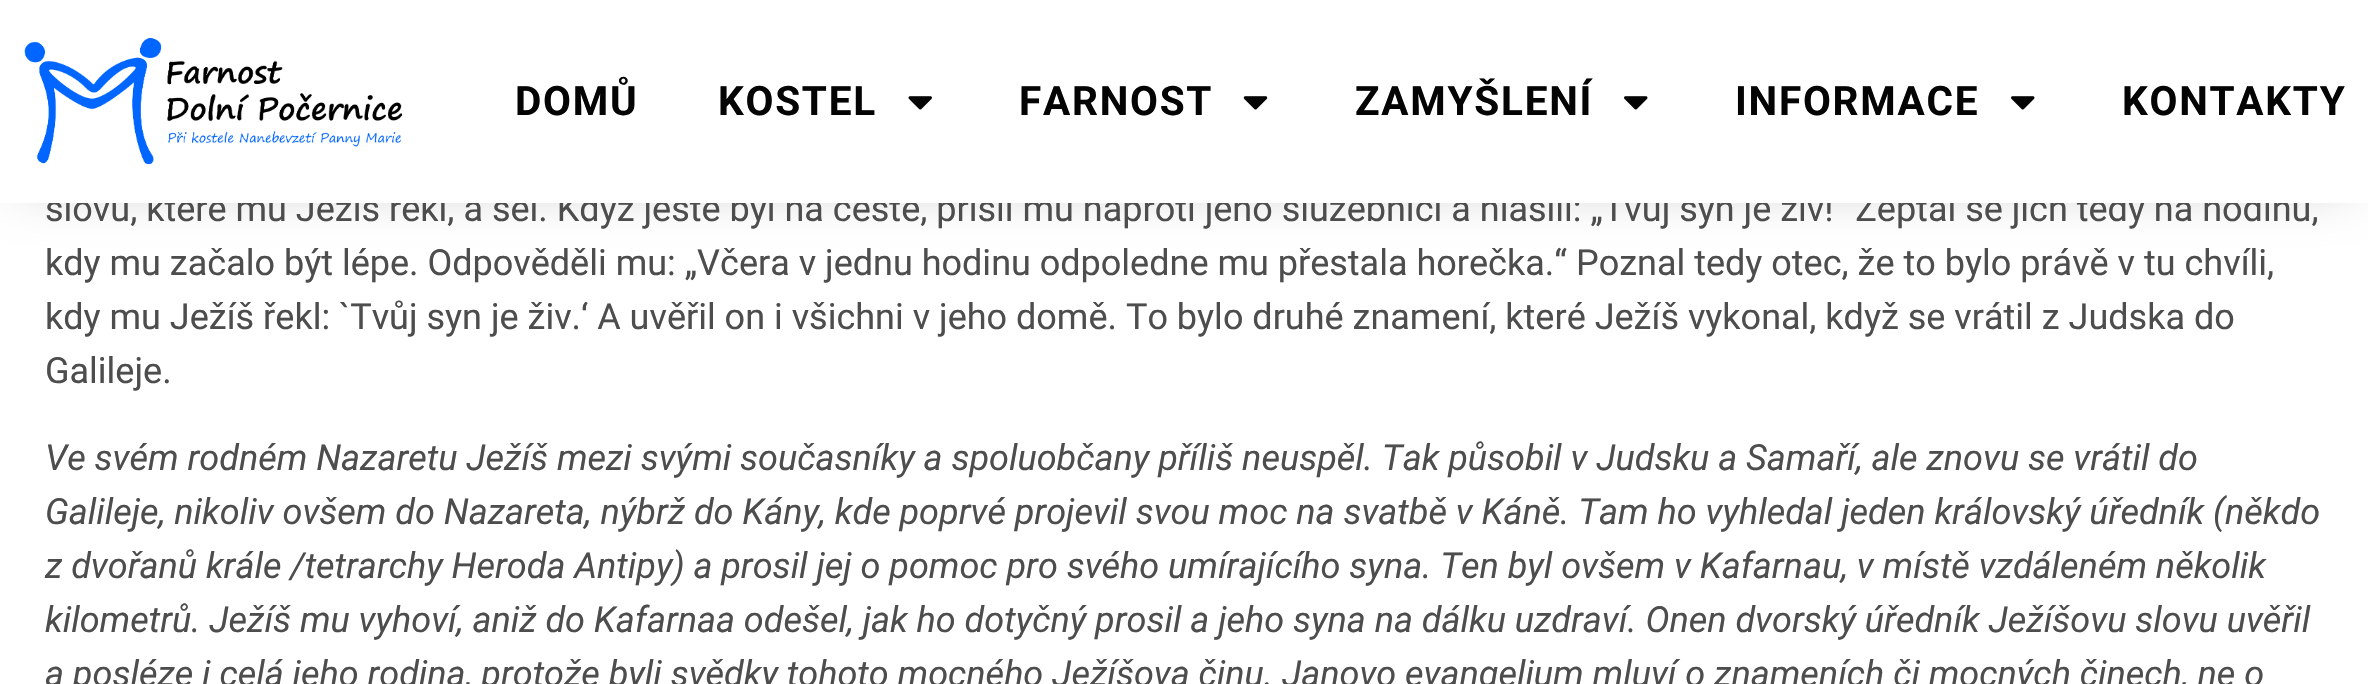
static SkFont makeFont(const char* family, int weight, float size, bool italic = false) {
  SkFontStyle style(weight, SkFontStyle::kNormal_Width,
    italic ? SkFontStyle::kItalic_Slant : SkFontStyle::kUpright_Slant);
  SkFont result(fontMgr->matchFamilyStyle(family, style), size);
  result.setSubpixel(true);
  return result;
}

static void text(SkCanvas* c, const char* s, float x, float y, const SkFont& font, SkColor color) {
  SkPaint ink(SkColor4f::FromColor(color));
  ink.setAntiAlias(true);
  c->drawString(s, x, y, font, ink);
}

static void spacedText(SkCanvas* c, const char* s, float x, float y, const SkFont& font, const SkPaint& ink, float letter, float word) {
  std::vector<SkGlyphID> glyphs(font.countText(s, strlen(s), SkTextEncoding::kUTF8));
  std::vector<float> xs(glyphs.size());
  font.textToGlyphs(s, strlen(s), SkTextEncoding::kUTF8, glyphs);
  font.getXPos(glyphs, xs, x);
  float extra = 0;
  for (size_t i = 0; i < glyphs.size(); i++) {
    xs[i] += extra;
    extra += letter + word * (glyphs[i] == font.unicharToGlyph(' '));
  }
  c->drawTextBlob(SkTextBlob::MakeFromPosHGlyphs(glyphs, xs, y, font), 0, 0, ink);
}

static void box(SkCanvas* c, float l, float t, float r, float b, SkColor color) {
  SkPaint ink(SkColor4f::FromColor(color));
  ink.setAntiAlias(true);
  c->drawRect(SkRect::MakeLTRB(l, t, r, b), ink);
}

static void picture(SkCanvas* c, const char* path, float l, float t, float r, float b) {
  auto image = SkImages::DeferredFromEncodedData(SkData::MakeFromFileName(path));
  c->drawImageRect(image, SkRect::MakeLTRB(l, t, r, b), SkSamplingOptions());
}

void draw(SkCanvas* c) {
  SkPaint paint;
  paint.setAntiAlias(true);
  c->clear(0xffffffff);
  paint.setColor(0x4d000000);
  paint.setMaskFilter(SkMaskFilter::MakeBlur(kNormal_SkBlurStyle, 28));
  c->drawRect(SkRect::MakeLTRB(23, 23, 2347, 180), paint);
  paint.setMaskFilter(nullptr);
  SkFont face1 = makeFont("Roboto", 400, 36);
  text(c, "slovu, které mu Ježíš řekl, a šel. Když ještě byl na cestě, přišli mu naproti jeho služebníci a hlásili: „Tvůj syn je živ!“ Zeptal se jich tedy na hodinu,", 45, 221, face1, 0xff4d4d4d);
  box(c, 0, 0, 2368, 203, 0xffffffff);
  picture(c, "img_01.png", 24, 38, 402, 164);
  SkFont face2 = makeFont("Roboto", 700, 40.5f);
  paint.setColor(0xff040404);
  spacedText(c, "DOMŮ", 515, 115, face2, paint, 1.75f, 0);
  spacedText(c, "KOSTEL", 718, 115, face2, paint, 1.75f, 0);
  picture(c, "img_02.png", 908, 96, 932, 110);
  spacedText(c, "FARNOST", 1019, 115, face2, paint, 1.75f, 0);
  picture(c, "img_03.png", 1243, 96, 1268, 110);
  spacedText(c, "ZAMYŠLENÍ", 1355, 115, face2, paint, 1.75f, 0);
  picture(c, "img_04.png", 1624, 96, 1648, 110);
  spacedText(c, "INFORMACE", 1735, 115, face2, paint, 1.75f, 0);
  picture(c, "img_04.png", 2011, 96, 2035, 110);
  spacedText(c, "KONTAKTY", 2122, 115, face2, paint, 1.75f, 0);
  text(c, "kdy mu začalo být lépe. Odpověděli mu: „Včera v jednu hodinu odpoledne mu přestala horečka.“ Poznal tedy otec, že to bylo právě v tu chvíli,", 45, 275, face1, 0xff4d4d4d);
  text(c, "kdy mu Ježíš řekl: `Tvůj syn je živ.‘ A uvěřil on i všichni v jeho domě. To bylo druhé znamení, které Ježíš vykonal, když se vrátil z Judska do", 45, 329, face1, 0xff4d4d4d);
  text(c, "Galileje.", 45, 383, face1, 0xff4d4d4d);
  SkFont face3 = makeFont("Roboto", 400, 36, true);
  text(c, "Ve svém rodném Nazaretu Ježíš mezi svými současníky a spoluobčany příliš neuspěl. Tak působil v Judsku a Samaří, ale znovu se vrátil do", 45, 470, face3, 0xff4d4d4d);
  text(c, "Galileje, nikoliv ovšem do Nazareta, nýbrž do Kány, kde poprvé projevil svou moc na svatbě v Káně. Tam ho vyhledal jeden královský úředník (někdo", 45, 524, face3, 0xff4d4d4d);
  text(c, "z dvořanů krále /tetrarchy Heroda Antipy) a prosil jej o pomoc pro svého umírajícího syna. Ten byl ovšem v Kafarnau, v místě vzdáleném několik", 45, 578, face3, 0xff4d4d4d);
  text(c, "kilometrů. Ježíš mu vyhoví, aniž do Kafarnaa odešel, jak ho dotyčný prosil a jeho syna na dálku uzdraví. Onen dvorský úředník Ježíšovu slovu uvěřil", 45, 632, face3, 0xff4d4d4d);
  text(c, "a posléze i celá jeho rodina, protože byli svědky tohoto mocného Ježíšova činu. Janovo evangelium mluví o znameních či mocných činech, ne o", 45, 686, face3, 0xff4d4d4d);
}
